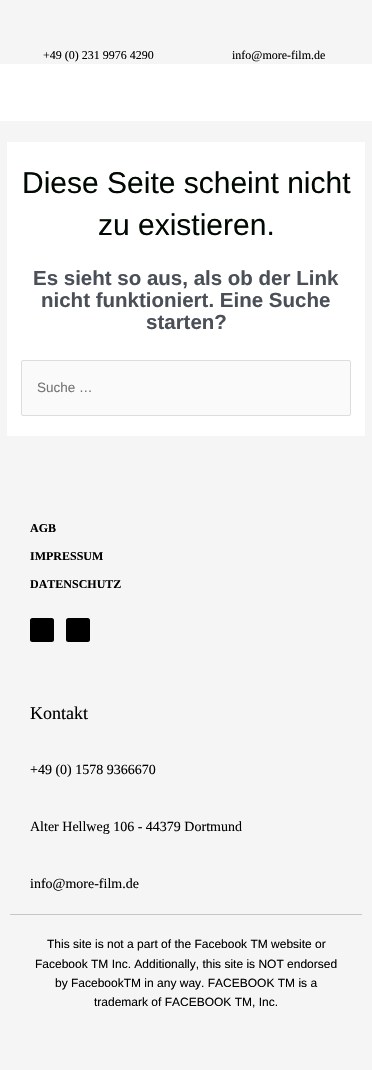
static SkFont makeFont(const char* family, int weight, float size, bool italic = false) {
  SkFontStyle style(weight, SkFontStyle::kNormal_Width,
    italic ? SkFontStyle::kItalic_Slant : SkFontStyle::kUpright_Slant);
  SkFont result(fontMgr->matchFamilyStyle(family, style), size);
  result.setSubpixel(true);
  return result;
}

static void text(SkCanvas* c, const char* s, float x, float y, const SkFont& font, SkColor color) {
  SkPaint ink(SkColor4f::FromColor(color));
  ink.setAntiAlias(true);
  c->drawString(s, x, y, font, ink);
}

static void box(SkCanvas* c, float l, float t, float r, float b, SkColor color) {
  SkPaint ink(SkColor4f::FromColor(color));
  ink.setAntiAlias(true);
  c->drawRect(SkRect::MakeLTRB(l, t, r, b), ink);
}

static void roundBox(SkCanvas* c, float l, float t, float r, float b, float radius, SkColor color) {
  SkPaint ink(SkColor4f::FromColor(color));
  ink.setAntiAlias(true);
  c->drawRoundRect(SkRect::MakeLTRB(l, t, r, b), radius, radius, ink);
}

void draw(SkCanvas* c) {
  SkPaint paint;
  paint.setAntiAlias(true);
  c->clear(0xfff5f5f5);
  SkFont face1 = makeFont("Liberation Serif", 400, 12);
  text(c, "+49 (0) 231 9976 4290", 43, 59, face1, 0xff000000);
  text(c, "info@more-film.de", 232, 59, face1, 0xff000000);
  box(c, 0, 64, 372, 121, 0xffffffff);
  box(c, 7, 142, 365, 436, 0xffffffff);
  SkFont face2 = makeFont("Liberation Sans", 400, 30);
  text(c, "Diese Seite scheint nicht", 22, 193, face2, 0xff000a02);
  text(c, "zu existieren.", 98, 235, face2, 0xff000a02);
  SkFont face3 = makeFont("Liberation Sans", 700, 20.5f);
  text(c, "Es sieht so aus, als ob der Link", 33, 285, face3, 0xff4b4f58);
  text(c, "nicht funktioniert. Eine Suche", 41, 307, face3, 0xff4b4f58);
  text(c, "starten?", 146, 329, face3, 0xff4b4f58);
  paint.setColor(0xfffafafa);
  c->drawRoundRect(SkRect::MakeLTRB(21.5f, 360.5f, 350.5f, 415.5f), 1.5f, 1.5f, paint);
  paint.setStyle(SkPaint::kStroke_Style);
  paint.setStrokeWidth(1);
  paint.setColor(0xffdddddd);
  c->drawRoundRect(SkRect::MakeLTRB(21.5f, 360.5f, 350.5f, 415.5f), 1.5f, 1.5f, paint);
  SkFont face4 = makeFont("Liberation Sans", 400, 13.5f);
  text(c, "Suche …", 37, 392, face4, 0xff757575);
  SkFont face5 = makeFont("Liberation Serif", 700, 12);
  text(c, "AGB", 30, 532, face5, 0xff000000);
  text(c, "IMPRESSUM", 30, 560, face5, 0xff000000);
  text(c, "DATENSCHUTZ", 30, 588, face5, 0xff000000);
  roundBox(c, 30, 618, 54, 642, 2.5f, 0xff000000);
  roundBox(c, 66, 618, 90, 642, 2.5f, 0xff000000);
  SkFont face6 = makeFont("Liberation Serif", 400, 18);
  text(c, "Kontakt", 30, 719, face6, 0xff000000);
  SkFont face7 = makeFont("Liberation Serif", 400, 14);
  text(c, "+49 (0) 1578 9366670", 30, 774, face7, 0xff000000);
  text(c, "Alter Hellweg 106 - 44379 Dortmund", 30, 831, face7, 0xff000000);
  text(c, "info@more-film.de", 30, 888, face7, 0xff000000);
  box(c, 10, 914, 362, 915, 0xffc6c6c6);
  SkFont face8 = makeFont("Liberation Sans", 400, 12);
  text(c, "This site is not a part of the Facebook TM website or", 47, 948, face8, 0xff000000);
  text(c, "Facebook TM Inc. Additionally, this site is NOT endorsed", 35, 968, face8, 0xff000000);
  text(c, "by FacebookTM in any way. FACEBOOK TM is a", 55, 987, face8, 0xff000000);
  text(c, "trademark of FACEBOOK TM, Inc.", 94, 1006, face8, 0xff000000);
}
